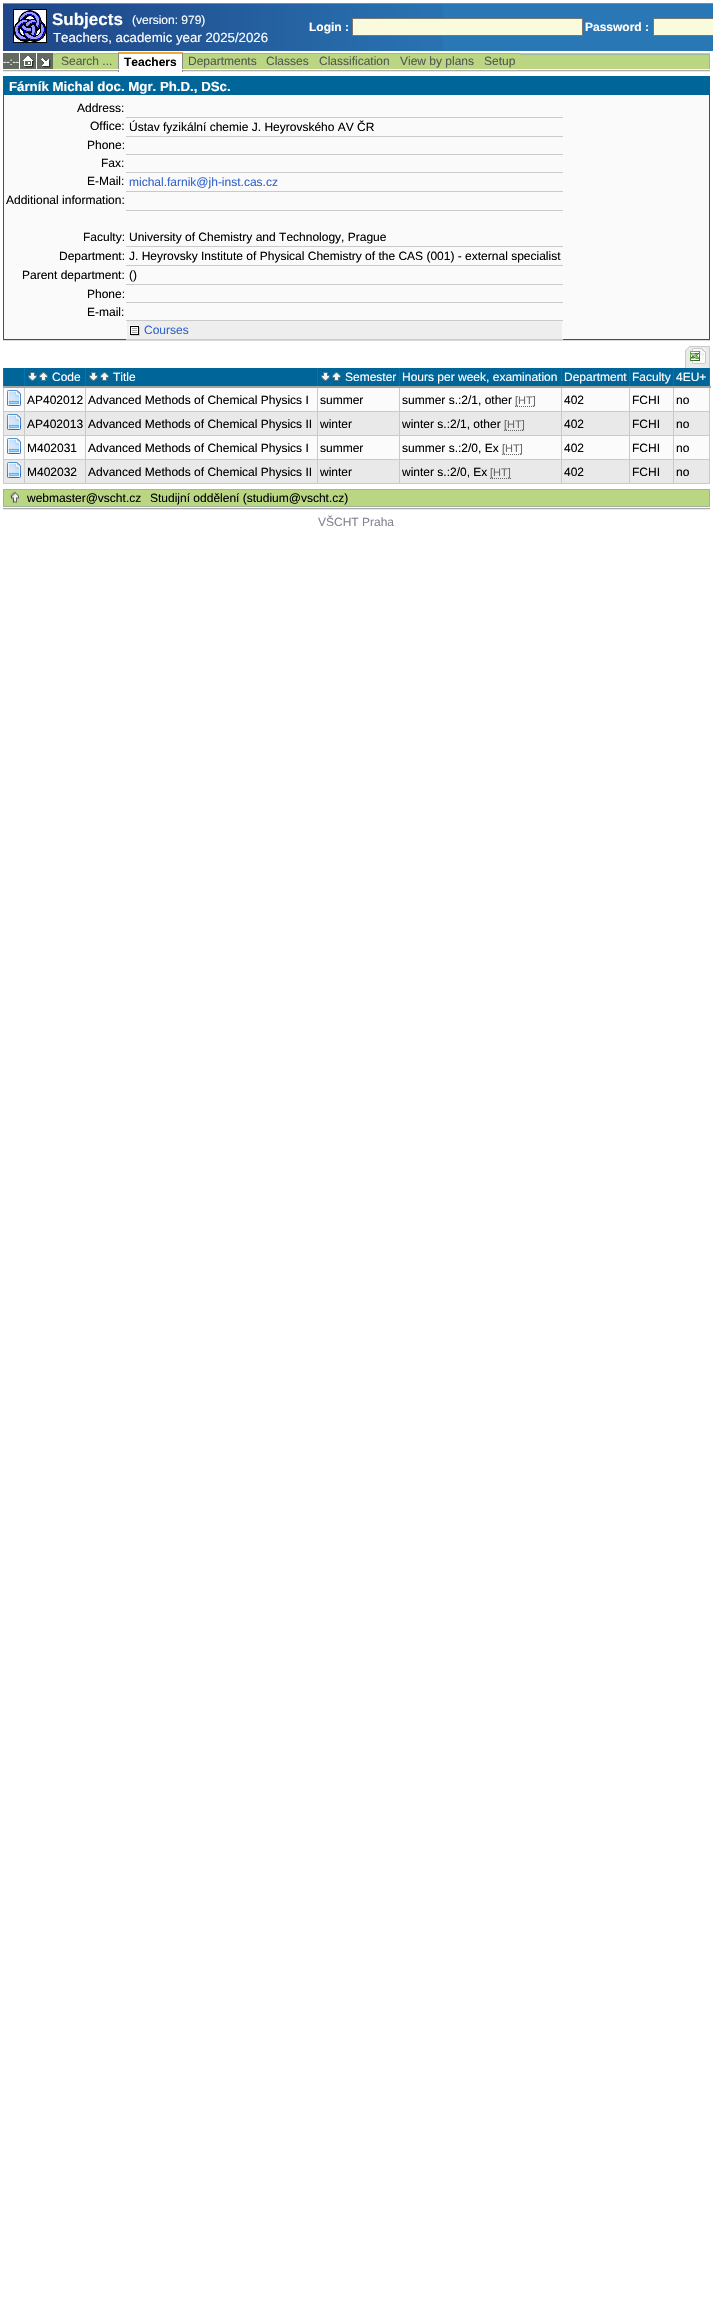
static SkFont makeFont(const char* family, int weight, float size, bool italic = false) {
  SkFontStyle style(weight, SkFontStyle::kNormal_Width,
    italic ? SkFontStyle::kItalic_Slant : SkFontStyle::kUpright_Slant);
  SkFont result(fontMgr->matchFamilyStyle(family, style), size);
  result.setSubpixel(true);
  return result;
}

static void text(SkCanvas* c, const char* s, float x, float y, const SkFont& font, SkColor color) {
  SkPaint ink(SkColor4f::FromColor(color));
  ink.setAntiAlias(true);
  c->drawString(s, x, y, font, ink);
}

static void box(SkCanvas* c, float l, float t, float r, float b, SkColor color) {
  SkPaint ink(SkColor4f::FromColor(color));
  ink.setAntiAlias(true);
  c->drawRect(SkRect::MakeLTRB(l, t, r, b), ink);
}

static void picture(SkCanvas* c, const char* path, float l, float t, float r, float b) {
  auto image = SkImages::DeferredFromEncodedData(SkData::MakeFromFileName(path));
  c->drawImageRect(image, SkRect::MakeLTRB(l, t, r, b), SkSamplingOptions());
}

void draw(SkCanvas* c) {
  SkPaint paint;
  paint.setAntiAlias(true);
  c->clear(0xffffffff);
  box(c, 443, 4, 713, 51, 0xff2a77b5);
  picture(c, "img_01.png", 3, 4, 443, 51);
  box(c, 3, 3, 713, 4, 0xff888888);
  paint.setColor(0xffffffff);
  c->drawRect(SkRect::MakeLTRB(13.5f, 9.5f, 46.5f, 42.5f), paint);
  paint.setStyle(SkPaint::kStroke_Style);
  paint.setStrokeWidth(1);
  paint.setColor(0xff000000);
  c->drawRect(SkRect::MakeLTRB(13.5f, 9.5f, 46.5f, 42.5f), paint);
  picture(c, "img_02.png", 14, 10, 46, 42);
  SkFont face1 = makeFont("Liberation Sans", 700, 17);
  text(c, "Subjects", 52, 25, face1, 0xffffffff);
  SkFont face2 = makeFont("Liberation Sans", 400, 12);
  text(c, "(version: 979)", 132, 24, face2, 0xffffffff);
  SkFont face3 = makeFont("Liberation Sans", 400, 13.25f);
  text(c, "Teachers, academic year 2025/2026", 53, 42, face3, 0xffffffff);
  SkFont face4 = makeFont("Liberation Sans", 700, 12);
  text(c, "Login :", 309, 31, face4, 0xffffffff);
  paint.setStyle(SkPaint::kFill_Style);
  paint.setColor(0xfffafadc);
  c->drawRect(SkRect::MakeLTRB(352.5f, 18.5f, 582.5f, 35.5f), paint);
  paint.setStyle(SkPaint::kStroke_Style);
  paint.setColor(0xff777777);
  c->drawRect(SkRect::MakeLTRB(352.5f, 18.5f, 582.5f, 35.5f), paint);
  text(c, "Password :", 585, 31, face4, 0xffffffff);
  paint.setStyle(SkPaint::kFill_Style);
  paint.setColor(0xfffafadc);
  c->drawRect(SkRect::MakeLTRB(653.5f, 18.5f, 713.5f, 35.5f), paint);
  paint.setStyle(SkPaint::kStroke_Style);
  paint.setColor(0xff777777);
  c->drawRect(SkRect::MakeLTRB(653.5f, 18.5f, 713.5f, 35.5f), paint);
  box(c, 53, 52, 710, 69, 0xffbad683);
  box(c, 20, 53, 36, 69, 0xff616b60);
  picture(c, "img_03.png", 23, 56, 35, 68);
  box(c, 37, 53, 53, 69, 0xff616b60);
  picture(c, "img_04.png", 41, 58, 51, 68);
  box(c, 53, 52, 118, 53, 0xffffffff);
  box(c, 53, 54, 56, 55, 0xff9eb69b);
  box(c, 520, 54, 710, 55, 0xff9eb69b);
  box(c, 709, 54, 710, 69, 0xff9eb69b);
  box(c, 3, 53, 19, 69, 0xff616b60);
  SkFont face5 = makeFont("Liberation Sans", 400, 10);
  text(c, "--:--", 3, 65, face5, 0xffffffff);
  box(c, 56, 53, 118, 54, 0xff9eb69b);
  text(c, "Search ...", 61, 65, face2, 0xff555555);
  paint.setStyle(SkPaint::kFill_Style);
  paint.setColor(0xfff2a92f);
  c->drawPath(SkPathBuilder().moveTo(118, 52).lineTo(183, 52).lineTo(182, 54).lineTo(119, 54).close().detach(), paint);
  paint.setColor(0xff888888);
  c->drawPath(SkPathBuilder().moveTo(183, 52).lineTo(183, 69).lineTo(182, 69).lineTo(182, 54).close().detach(), paint);
  c->drawPath(SkPathBuilder().moveTo(118, 69).lineTo(118, 52).lineTo(119, 54).lineTo(119, 69).close().detach(), paint);
  box(c, 119, 54, 182, 69, 0xffffffff);
  text(c, "Teachers", 124, 66, face4, 0xff000000);
  box(c, 183, 52, 710, 53, 0xffffffff);
  box(c, 183, 53, 520, 54, 0xff9eb69b);
  text(c, "Departments", 188, 65, face2, 0xff555555);
  text(c, "Classes", 266, 65, face2, 0xff555555);
  text(c, "Classification", 319, 65, face2, 0xff555555);
  text(c, "View by plans", 400, 65, face2, 0xff555555);
  text(c, "Setup", 484, 65, face2, 0xff555555);
  picture(c, "img_05.png", 3, 70, 118, 72);
  box(c, 182, 70, 183, 72, 0xff888888);
  box(c, 118, 70, 119, 72, 0xff888888);
  picture(c, "img_06.png", 183, 70, 710, 72);
  box(c, 4, 95, 709, 339, 0xfffafafa);
  box(c, 3, 76, 710, 78, 0xff006699);
  box(c, 709, 76, 710, 340, 0xff006699);
  box(c, 3, 339, 710, 340, 0xff006699);
  box(c, 3, 76, 4, 340, 0xff006699);
  box(c, 4, 78, 709, 95, 0xff006699);
  SkFont face6 = makeFont("Liberation Sans", 700, 13.25f);
  text(c, "Fárník Michal doc. Mgr. Ph.D., DSc.", 9, 91, face6, 0xffffffff);
  text(c, "Address:", 77, 112, face2, 0xff000000);
  box(c, 126, 117, 563, 118, 0xffcacaca);
  text(c, "Office:", 90, 130, face2, 0xff000000);
  box(c, 126, 136, 563, 137, 0xffcacaca);
  text(c, "Ústav fyzikální chemie J. Heyrovského AV ČR", 129, 131, face2, 0xff000000);
  text(c, "Phone:", 87, 149, face2, 0xff000000);
  box(c, 126, 154, 563, 155, 0xffcacaca);
  text(c, "Fax:", 101, 167, face2, 0xff000000);
  box(c, 126, 172, 563, 173, 0xffcacaca);
  text(c, "E-Mail:", 87, 185, face2, 0xff000000);
  box(c, 126, 191, 563, 192, 0xffcacaca);
  text(c, "michal.farnik@jh-inst.cas.cz", 129, 186, face2, 0xff3364ca);
  text(c, "Additional information:", 6, 204, face2, 0xff000000);
  box(c, 126, 210, 563, 211, 0xffcacaca);
  text(c, "Faculty:", 83, 241, face2, 0xff000000);
  box(c, 126, 246, 563, 247, 0xffcacaca);
  text(c, "University of Chemistry and Technology, Prague", 129, 241, face2, 0xff000000);
  text(c, "Department:", 59, 260, face2, 0xff000000);
  box(c, 126, 265, 563, 266, 0xffcacaca);
  text(c, "J. Heyrovsky Institute of Physical Chemistry of the CAS (001) - external specialist", 129, 260, face2, 0xff000000);
  text(c, "Parent department:", 22, 279, face2, 0xff000000);
  box(c, 126, 284, 563, 285, 0xffcacaca);
  text(c, "()", 129, 279, face2, 0xff000000);
  text(c, "Phone:", 87, 298, face2, 0xff000000);
  box(c, 126, 302, 563, 303, 0xffcacaca);
  text(c, "E-mail:", 87, 316, face2, 0xff000000);
  box(c, 126, 320, 563, 321, 0xffcacaca);
  box(c, 127, 321, 562, 339, 0xffeeeeee);
  box(c, 126, 339, 563, 340, 0xffcacaca);
  picture(c, "img_07.png", 129, 325, 140, 336);
  text(c, "Courses", 144, 334, face2, 0xff3364ca);
  box(c, 3, 340, 710, 341, 0xffdadada);
  picture(c, "img_08.png", 685, 347, 689, 368);
  box(c, 689, 347, 709, 368, 0xffeaeaea);
  box(c, 689, 346, 710, 347, 0xffcacaca);
  box(c, 709, 346, 710, 368, 0xffcacaca);
  picture(c, "img_09.png", 690, 348, 706, 364);
  box(c, 4, 368, 709, 386, 0xff006699);
  box(c, 3, 411, 710, 412, 0xffcacaca);
  box(c, 3, 435, 710, 436, 0xffcacaca);
  box(c, 3, 459, 710, 460, 0xffcacaca);
  box(c, 709, 459, 710, 484, 0xffcacaca);
  box(c, 3, 483, 710, 484, 0xffcacaca);
  box(c, 3, 459, 4, 484, 0xffcacaca);
  box(c, 3, 435, 4, 460, 0xffcacaca);
  box(c, 3, 387, 4, 436, 0xffcacaca);
  box(c, 3, 368, 4, 388, 0xff0077aa);
  box(c, 4, 388, 709, 411, 0xfffbfbfb);
  box(c, 4, 412, 709, 435, 0xffe9e9e9);
  box(c, 4, 436, 709, 459, 0xfffbfbfb);
  box(c, 4, 460, 709, 483, 0xffe9e9e9);
  box(c, 24, 387, 25, 484, 0xffcacaca);
  box(c, 24, 368, 25, 388, 0xff0077aa);
  box(c, 85, 387, 86, 484, 0xffcacaca);
  box(c, 85, 368, 86, 388, 0xff0077aa);
  box(c, 317, 387, 318, 484, 0xffcacaca);
  box(c, 317, 368, 318, 388, 0xff0077aa);
  box(c, 399, 387, 400, 484, 0xffcacaca);
  box(c, 399, 368, 400, 388, 0xff0077aa);
  box(c, 561, 387, 562, 484, 0xffcacaca);
  box(c, 561, 368, 562, 388, 0xff0077aa);
  box(c, 629, 387, 630, 484, 0xffcacaca);
  box(c, 629, 368, 630, 388, 0xff0077aa);
  box(c, 709, 435, 710, 460, 0xffcacaca);
  box(c, 709, 387, 710, 436, 0xffcacaca);
  box(c, 709, 368, 710, 388, 0xff0077aa);
  box(c, 673, 387, 674, 484, 0xffcacaca);
  box(c, 673, 368, 674, 388, 0xff0077aa);
  box(c, 3, 386, 711, 388, 0xffa5a5a5);
  picture(c, "img_10.png", 28, 372, 37, 381);
  picture(c, "img_11.png", 39, 372, 48, 381);
  text(c, "Code", 52, 381, face2, 0xffffffff);
  picture(c, "img_10.png", 89, 372, 98, 381);
  picture(c, "img_11.png", 100, 372, 109, 381);
  text(c, "Title", 113, 381, face2, 0xffffffff);
  picture(c, "img_10.png", 321, 372, 330, 381);
  picture(c, "img_11.png", 332, 372, 341, 381);
  text(c, "Semester", 345, 381, face2, 0xffffffff);
  text(c, "Hours per week, examination", 402, 381, face2, 0xffffffff);
  text(c, "Department", 564, 381, face2, 0xffffffff);
  text(c, "Faculty", 632, 381, face2, 0xffffffff);
  text(c, "4EU+", 676, 381, face2, 0xffffffff);
  picture(c, "img_12.png", 7, 390, 21, 406);
  text(c, "AP402012", 27, 404, face2, 0xff000000);
  text(c, "Advanced Methods of Chemical Physics I", 88, 404, face2, 0xff000000);
  text(c, "summer", 320, 404, face2, 0xff000000);
  text(c, "summer s.:2/1, other", 402, 404, face2, 0xff000000);
  paint.setStyle(SkPaint::kStroke_Style);
  paint.setColor(0xff666666);
  paint.setPathEffect(SkDashPathEffect::Make({{1, 1}}, 0));
  c->drawPath(SkPathBuilder().moveTo(515, 406.5f).lineTo(535, 406.5f).detach(), paint);
  paint.setPathEffect(nullptr);
  SkFont face7 = makeFont("Liberation Sans", 400, 11);
  text(c, "[HT]", 515, 404, face7, 0xff666666);
  text(c, "402", 564, 404, face2, 0xff000000);
  text(c, "FCHI", 632, 404, face2, 0xff000000);
  text(c, "no", 676, 404, face2, 0xff000000);
  picture(c, "img_13.png", 7, 414, 21, 430);
  text(c, "AP402013", 27, 428, face2, 0xff000000);
  text(c, "Advanced Methods of Chemical Physics II", 88, 428, face2, 0xff000000);
  text(c, "winter", 320, 428, face2, 0xff000000);
  text(c, "winter s.:2/1, other", 402, 428, face2, 0xff000000);
  paint.setPathEffect(SkDashPathEffect::Make({{1, 1}}, 0));
  c->drawPath(SkPathBuilder().moveTo(504, 430.5f).lineTo(524, 430.5f).detach(), paint);
  paint.setPathEffect(nullptr);
  text(c, "[HT]", 504, 428, face7, 0xff666666);
  text(c, "402", 564, 428, face2, 0xff000000);
  text(c, "FCHI", 632, 428, face2, 0xff000000);
  text(c, "no", 676, 428, face2, 0xff000000);
  picture(c, "img_12.png", 7, 438, 21, 454);
  text(c, "M402031", 27, 452, face2, 0xff000000);
  text(c, "Advanced Methods of Chemical Physics I", 88, 452, face2, 0xff000000);
  text(c, "summer", 320, 452, face2, 0xff000000);
  text(c, "summer s.:2/0, Ex", 402, 452, face2, 0xff000000);
  paint.setPathEffect(SkDashPathEffect::Make({{1, 1}}, 0));
  c->drawPath(SkPathBuilder().moveTo(502, 454.5f).lineTo(522, 454.5f).detach(), paint);
  paint.setPathEffect(nullptr);
  text(c, "[HT]", 502, 452, face7, 0xff666666);
  text(c, "402", 564, 452, face2, 0xff000000);
  text(c, "FCHI", 632, 452, face2, 0xff000000);
  text(c, "no", 676, 452, face2, 0xff000000);
  picture(c, "img_13.png", 7, 462, 21, 478);
  text(c, "M402032", 27, 476, face2, 0xff000000);
  text(c, "Advanced Methods of Chemical Physics II", 88, 476, face2, 0xff000000);
  text(c, "winter", 320, 476, face2, 0xff000000);
  text(c, "winter s.:2/0, Ex", 402, 476, face2, 0xff000000);
  paint.setPathEffect(SkDashPathEffect::Make({{1, 1}}, 0));
  c->drawPath(SkPathBuilder().moveTo(490, 478.5f).lineTo(511, 478.5f).detach(), paint);
  paint.setPathEffect(nullptr);
  text(c, "[HT]", 490, 476, face7, 0xff666666);
  text(c, "402", 564, 476, face2, 0xff000000);
  text(c, "FCHI", 632, 476, face2, 0xff000000);
  text(c, "no", 676, 476, face2, 0xff000000);
  paint.setColor(0xff9eb69b);
  c->drawRect(SkRect::MakeLTRB(3.5f, 489.5f, 709.5f, 506.5f), paint);
  box(c, 4, 490, 709, 506, 0xffbad683);
  picture(c, "img_14.png", 9, 491, 19, 503);
  text(c, "webmaster@vscht.cz", 27, 502, face2, 0xff000000);
  text(c, "Studijní oddělení (studium@vscht.cz)", 150, 502, face2, 0xff000000);
  picture(c, "img_15.png", 3, 508, 710, 510);
  text(c, "VŠCHT Praha", 318, 526, face2, 0xff828490);
}
